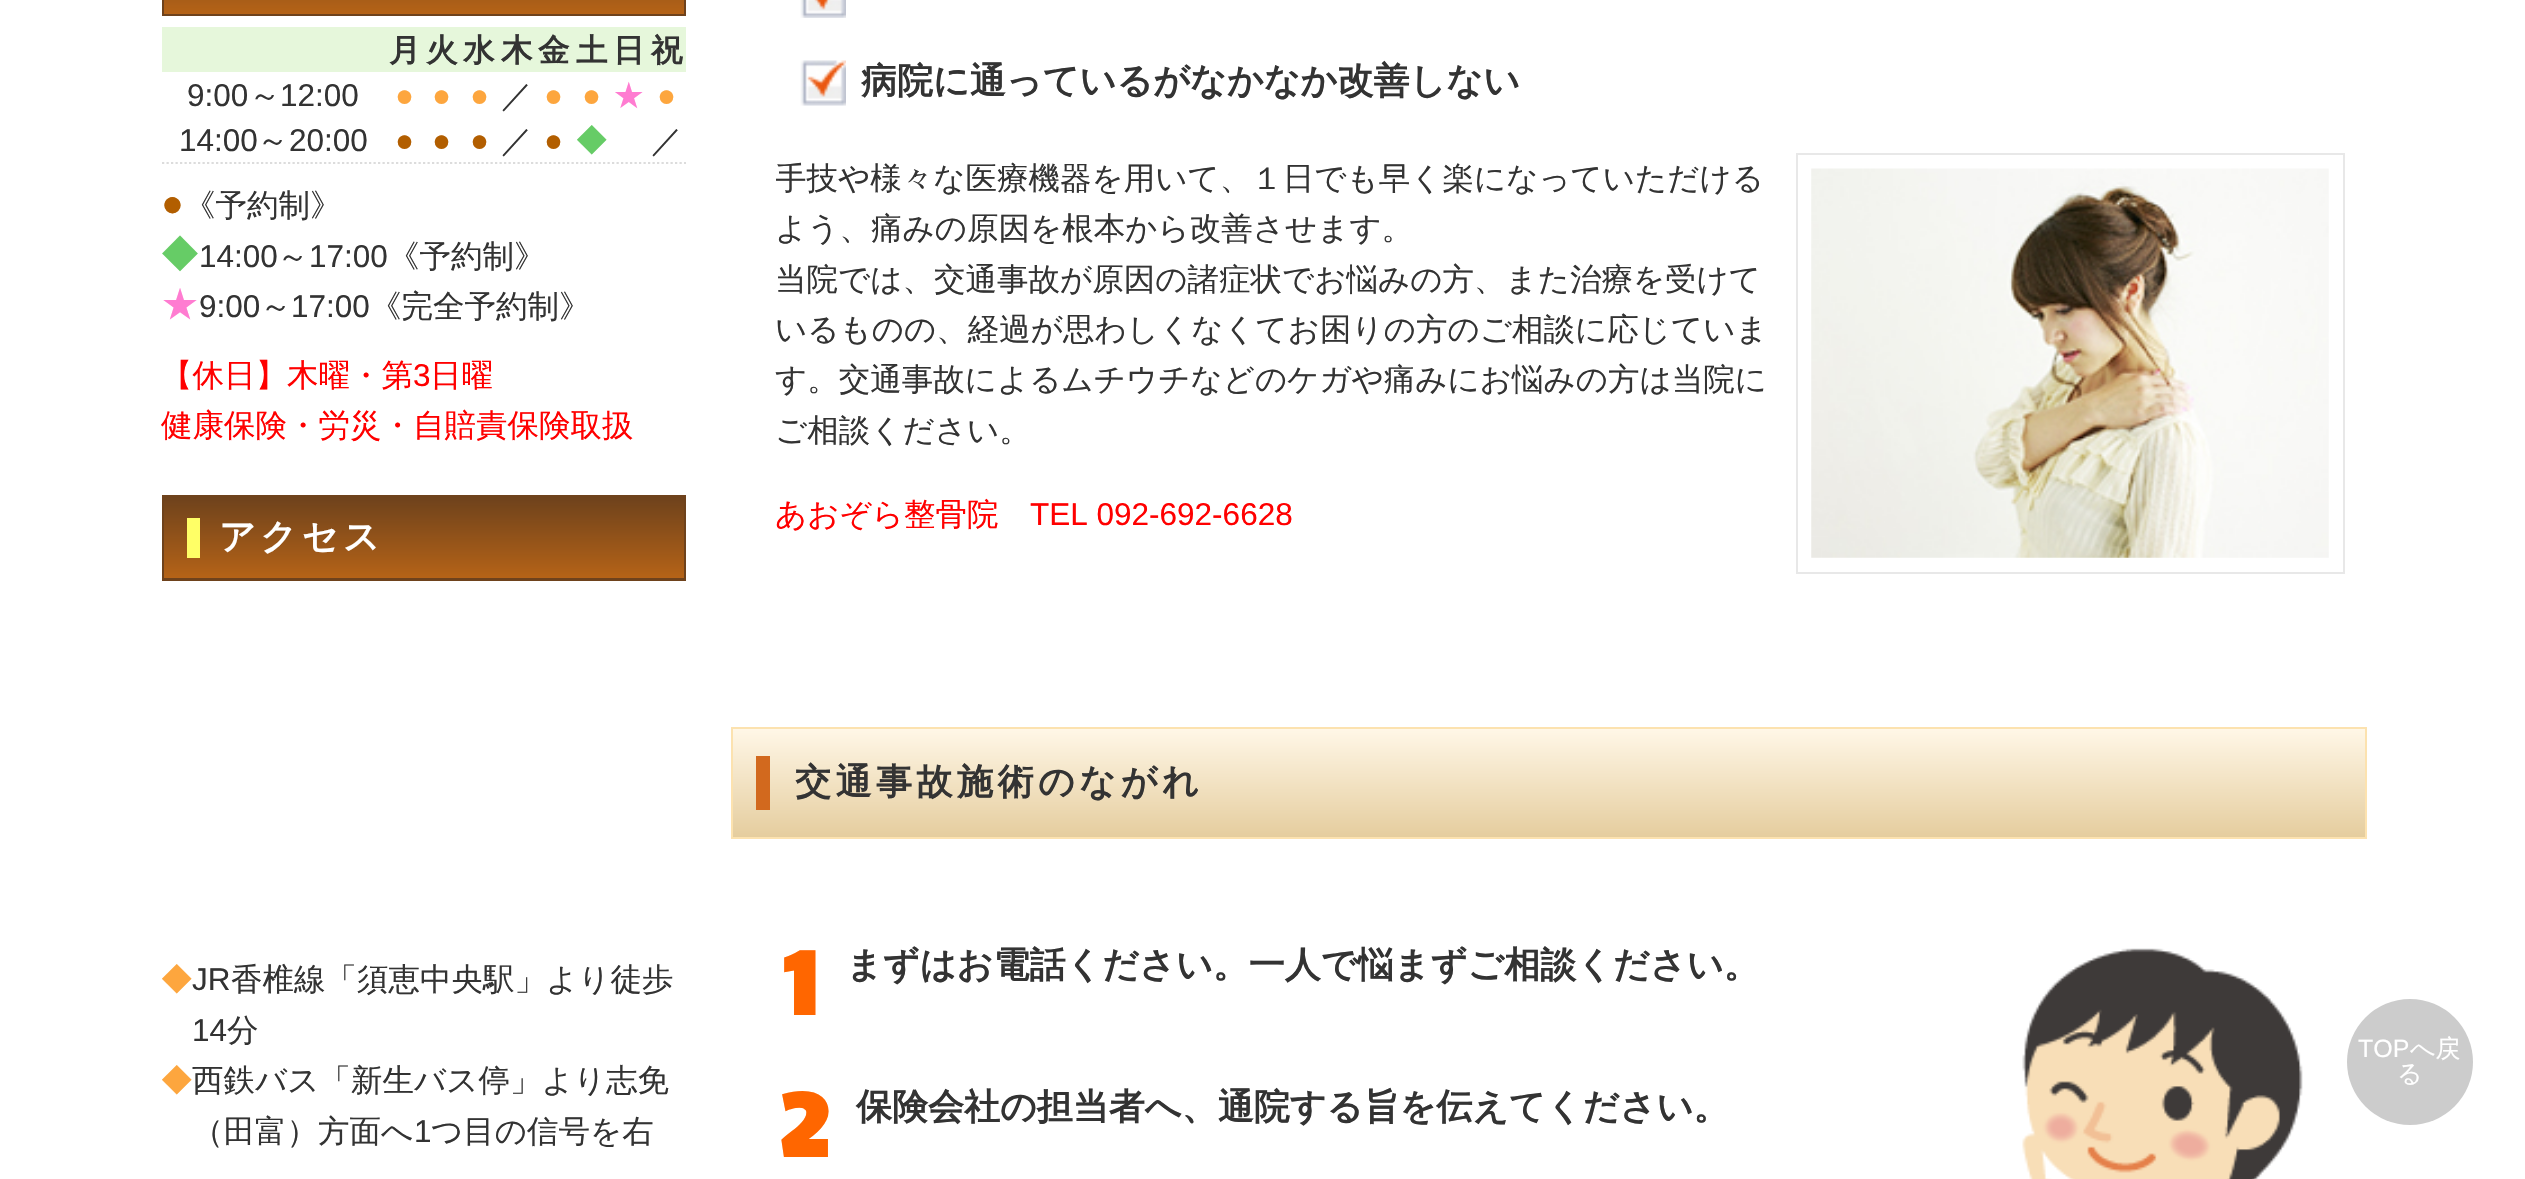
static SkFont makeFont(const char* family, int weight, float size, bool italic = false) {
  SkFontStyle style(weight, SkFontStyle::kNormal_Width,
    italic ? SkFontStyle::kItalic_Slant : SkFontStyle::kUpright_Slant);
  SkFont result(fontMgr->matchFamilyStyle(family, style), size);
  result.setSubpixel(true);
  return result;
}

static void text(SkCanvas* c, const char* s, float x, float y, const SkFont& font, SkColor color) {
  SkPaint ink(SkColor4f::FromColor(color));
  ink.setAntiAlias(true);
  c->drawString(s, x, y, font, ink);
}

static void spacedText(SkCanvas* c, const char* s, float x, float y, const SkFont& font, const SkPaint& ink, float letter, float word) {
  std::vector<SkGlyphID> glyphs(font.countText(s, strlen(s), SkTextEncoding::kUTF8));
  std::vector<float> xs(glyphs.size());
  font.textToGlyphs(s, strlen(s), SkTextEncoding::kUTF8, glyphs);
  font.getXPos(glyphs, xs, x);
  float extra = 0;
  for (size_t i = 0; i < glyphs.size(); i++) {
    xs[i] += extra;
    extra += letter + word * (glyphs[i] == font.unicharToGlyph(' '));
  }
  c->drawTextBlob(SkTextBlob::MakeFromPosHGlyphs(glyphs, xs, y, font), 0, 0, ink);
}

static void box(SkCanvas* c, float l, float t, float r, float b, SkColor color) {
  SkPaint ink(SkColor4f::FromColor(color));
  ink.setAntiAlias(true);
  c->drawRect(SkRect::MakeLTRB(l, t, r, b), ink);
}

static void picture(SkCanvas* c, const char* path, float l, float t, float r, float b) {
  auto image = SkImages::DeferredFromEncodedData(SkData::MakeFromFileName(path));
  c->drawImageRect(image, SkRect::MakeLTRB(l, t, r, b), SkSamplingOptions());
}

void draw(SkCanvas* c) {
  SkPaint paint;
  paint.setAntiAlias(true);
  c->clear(0xffffffff);
  {
    const SkColor colors[] = {0xff6e421c, 0xffb56317};
    const float stops[] = {0, 1};
    const SkPoint ends[] = {{424, -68}, {424, 14}};
    paint.setShader(SkGradientShader::MakeLinear(ends, colors, stops, 2, SkTileMode::kClamp));
    paint.setAlpha(255);
  }
  c->drawRect(SkRect::MakeLTRB(164, 0, 684, 14), paint);
  paint.setStyle(SkPaint::kStroke_Style);
  paint.setStrokeWidth(2);
  paint.setShader(nullptr);
  paint.setColor(0xff6e421c);
  c->drawRect(SkRect::MakeLTRB(163, -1, 685, 15), paint);
  box(c, 162, 27, 686, 72, 0xffe6f7db);
  SkFont face1 = makeFont("WenQuanYi Zen Hei", 700, 31.5f);
  text(c, "月", 389, 61, face1, 0xff333333);
  text(c, "火", 426, 61, face1, 0xff333333);
  text(c, "水", 463, 61, face1, 0xff333333);
  text(c, "木", 501, 61, face1, 0xff333333);
  text(c, "金", 538, 61, face1, 0xff333333);
  text(c, "土", 576, 61, face1, 0xff333333);
  text(c, "日", 613, 61, face1, 0xff333333);
  text(c, "祝", 651, 61, face1, 0xff333333);
  SkFont face2 = makeFont("Liberation Sans", 400, 31.5f);
  text(c, "9:00", 187, 106, face2, 0xff333333);
  SkFont face3 = makeFont("WenQuanYi Zen Hei", 500, 31.5f);
  text(c, "～", 249, 106, face3, 0xff333333);
  text(c, "12:00", 280, 106, face2, 0xff333333);
  text(c, "●", 395, 106, face2, 0xfffda63e);
  text(c, "●", 432, 106, face2, 0xfffda63e);
  text(c, "●", 470, 106, face2, 0xfffda63e);
  text(c, "／", 501, 106, face3, 0xff333333);
  text(c, "●", 544, 106, face2, 0xfffda63e);
  text(c, "●", 582, 106, face2, 0xfffda63e);
  text(c, "★", 613, 106, face3, 0xffff7cd1);
  text(c, "●", 657, 106, face2, 0xfffda63e);
  text(c, "14:00", 179, 151, face2, 0xff333333);
  text(c, "～", 257, 151, face3, 0xff333333);
  text(c, "20:00", 289, 151, face2, 0xff333333);
  text(c, "●", 395, 151, face2, 0xffb25e00);
  text(c, "●", 432, 151, face2, 0xffb25e00);
  text(c, "●", 470, 151, face2, 0xffb25e00);
  text(c, "／", 501, 151, face3, 0xff333333);
  text(c, "●", 544, 151, face2, 0xffb25e00);
  text(c, "◆", 576, 151, face3, 0xff66cc66);
  text(c, "／", 651, 151, face3, 0xff333333);
  paint.setStrokeWidth(2.2f);
  paint.setColor(0xffdcdcdc);
  paint.setPathEffect(SkDashPathEffect::Make({{2.25f, 2.25f}}, 0));
  c->drawPath(SkPathBuilder().moveTo(162, 163).lineTo(686, 163).detach(), paint);
  paint.setPathEffect(nullptr);
  SkFont face4 = makeFont("Liberation Sans", 400, 38);
  text(c, "●", 161, 216, face4, 0xffb25e00);
  text(c, "《予約制》", 184, 216, face3, 0xff333333);
  SkFont face5 = makeFont("WenQuanYi Zen Hei", 500, 38);
  text(c, "◆", 161, 267, face5, 0xff66cc66);
  text(c, "14:00", 199, 267, face2, 0xff333333);
  text(c, "～", 277, 267, face3, 0xff333333);
  text(c, "17:00", 309, 267, face2, 0xff333333);
  text(c, "《予約制》", 388, 267, face3, 0xff333333);
  text(c, "★", 161, 317, face5, 0xffff7cd1);
  text(c, "9:00", 199, 317, face2, 0xff333333);
  text(c, "～", 260, 317, face3, 0xff333333);
  text(c, "17:00", 291, 317, face2, 0xff333333);
  text(c, "《完全予約制》", 370, 317, face3, 0xff333333);
  text(c, "【休日】木曜・第", 161, 386, face3, 0xffff0000);
  text(c, "3", 413, 386, face2, 0xffff0000);
  text(c, "日曜", 430, 386, face3, 0xffff0000);
  text(c, "健康保険・労災・自賠責保険取扱", 161, 436, face3, 0xffff0000);
  paint.setStyle(SkPaint::kFill_Style);
  {
    const SkColor colors[] = {0xff6e421c, 0xffb56317};
    const float stops[] = {0, 1};
    const SkPoint ends[] = {{424, 497}, {424, 578}};
    paint.setShader(SkGradientShader::MakeLinear(ends, colors, stops, 2, SkTileMode::kClamp));
    paint.setAlpha(255);
  }
  c->drawRect(SkRect::MakeLTRB(164, 497, 684, 578), paint);
  {
    const SkColor colors[] = {0xff6e421c, 0xffb56317};
    const float stops[] = {0, 1};
    const SkPoint ends[] = {{424, 578}, {424, 659}};
    paint.setShader(SkGradientShader::MakeLinear(ends, colors, stops, 2, SkTileMode::kClamp));
    paint.setAlpha(255);
  }
  c->drawRect(SkRect::MakeLTRB(162, 578, 686, 579), paint);
  paint.setStyle(SkPaint::kStroke_Style);
  paint.setStrokeWidth(2);
  paint.setShader(nullptr);
  paint.setColor(0xff6e421c);
  c->drawRect(SkRect::MakeLTRB(163, 496, 685, 580), paint);
  box(c, 187, 518, 200, 558, 0xffffff66);
  SkFont face6 = makeFont("WenQuanYi Zen Hei", 700, 36);
  paint.setStyle(SkPaint::kFill_Style);
  paint.setColor(0xffffffff);
  spacedText(c, "アクセス", 219, 549, face6, paint, 4.5f, 0);
  text(c, "◆", 161, 990, face3, 0xfffda63e);
  text(c, "JR", 192, 990, face2, 0xff333333);
  text(c, "香椎線「須恵中央駅」より徒歩", 231, 990, face3, 0xff333333);
  text(c, "14", 192, 1041, face2, 0xff333333);
  text(c, "分", 227, 1041, face3, 0xff333333);
  text(c, "◆", 161, 1091, face3, 0xfffda63e);
  text(c, "西鉄バス「新生バス停」より志免", 192, 1091, face3, 0xff333333);
  text(c, "（田富）方面へ", 192, 1142, face3, 0xff333333);
  text(c, "1", 414, 1142, face2, 0xff333333);
  text(c, "つ目の信号を右", 431, 1142, face3, 0xff333333);
  picture(c, "img_01.png", 800, 0, 846, 18);
  picture(c, "img_02.png", 800, 60, 846, 106);
  text(c, "病院に通っているがなかなか改善しない", 861, 93, face6, 0xff333333);
  c->save();
  c->clipRect(SkRect::MakeLTRB(776, 0, 2345, 592));
  text(c, "手技や様々な医療機器を用いて、１日でも早く楽になっていただける", 775, 189, face3, 0xff333333);
  c->restore();
  text(c, "よう、痛みの原因を根本から改善させます。", 775, 239, face3, 0xff333333);
  text(c, "当院では、交通事故が原因の諸症状でお悩みの方、また治療を受けて", 775, 290, face3, 0xff333333);
  text(c, "いるものの、経過が思わしくなくてお困りの方のご相談に応じていま", 775, 340, face3, 0xff333333);
  text(c, "す。交通事故によるムチウチなどのケガや痛みにお悩みの方は当院に", 775, 390, face3, 0xff333333);
  text(c, "ご相談ください。", 775, 441, face3, 0xff333333);
  paint.setStyle(SkPaint::kStroke_Style);
  paint.setColor(0xffe8e8e8);
  c->drawRect(SkRect::MakeLTRB(1797, 154, 2344, 573), paint);
  picture(c, "img_03.png", 1811, 168, 2329, 558);
  text(c, "あおぞら整骨院", 775, 525, face3, 0xffff0000);
  text(c, "TEL 092-692-6628", 1030, 525, face2, 0xffff0000);
  paint.setStyle(SkPaint::kFill_Style);
  {
    const SkColor colors[] = {0xfffff7e7, 0xffe5cd9e};
    const float stops[] = {0, 1};
    const SkPoint ends[] = {{1549, 729}, {1549, 837}};
    paint.setShader(SkGradientShader::MakeLinear(ends, colors, stops, 2, SkTileMode::kClamp));
    paint.setAlpha(255);
  }
  c->drawRect(SkRect::MakeLTRB(733, 729, 2365, 837), paint);
  paint.setStyle(SkPaint::kStroke_Style);
  paint.setShader(nullptr);
  paint.setColor(0xfffce2af);
  c->drawRect(SkRect::MakeLTRB(732, 728, 2366, 838), paint);
  box(c, 756, 756, 770, 810, 0xffd2691e);
  paint.setStyle(SkPaint::kFill_Style);
  paint.setColor(0xff333333);
  spacedText(c, "交通事故施術のながれ", 795, 794, face6, paint, 4.5f, 0);
  SkFont face7 = makeFont("Candal", 700, 90);
  text(c, "1", 775, 1015, face7, 0xffff6600);
  text(c, "まずはお電話ください。一人で悩まずご相談ください。", 846, 977, face6, 0xff333333);
  text(c, "2", 775, 1157, face7, 0xffff6600);
  text(c, "保険会社の担当者へ、通院する旨を伝えてください。", 856, 1119, face6, 0xff333333);
  picture(c, "img_04.png", 2022, 948, 2303, 1179);
  paint.setColor(0xffcccccc);
  c->drawCircle(2410, 1062, 63, paint);
  SkFont face8 = makeFont("Liberation Sans", 400, 25);
  text(c, "TOP", 2358, 1057, face8, 0xffffffff);
  SkFont face9 = makeFont("WenQuanYi Zen Hei", 500, 25);
  text(c, "へ戻", 2410, 1057, face9, 0xffffffff);
  text(c, "る", 2397, 1082, face9, 0xffffffff);
}
